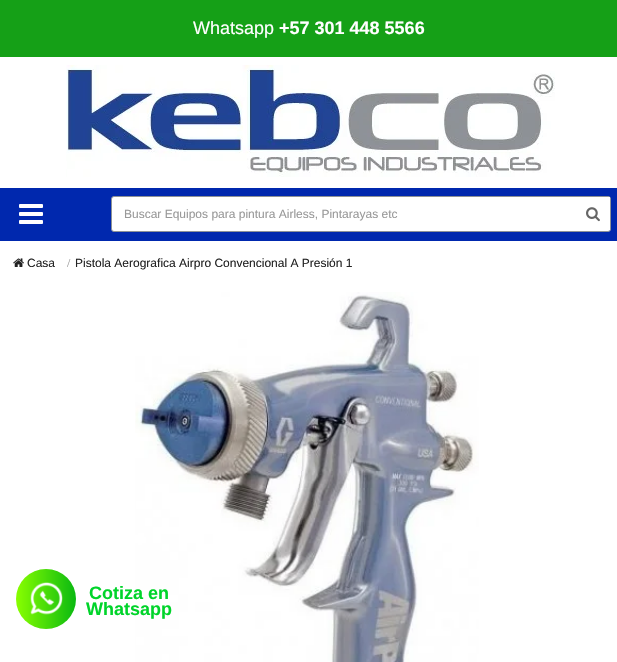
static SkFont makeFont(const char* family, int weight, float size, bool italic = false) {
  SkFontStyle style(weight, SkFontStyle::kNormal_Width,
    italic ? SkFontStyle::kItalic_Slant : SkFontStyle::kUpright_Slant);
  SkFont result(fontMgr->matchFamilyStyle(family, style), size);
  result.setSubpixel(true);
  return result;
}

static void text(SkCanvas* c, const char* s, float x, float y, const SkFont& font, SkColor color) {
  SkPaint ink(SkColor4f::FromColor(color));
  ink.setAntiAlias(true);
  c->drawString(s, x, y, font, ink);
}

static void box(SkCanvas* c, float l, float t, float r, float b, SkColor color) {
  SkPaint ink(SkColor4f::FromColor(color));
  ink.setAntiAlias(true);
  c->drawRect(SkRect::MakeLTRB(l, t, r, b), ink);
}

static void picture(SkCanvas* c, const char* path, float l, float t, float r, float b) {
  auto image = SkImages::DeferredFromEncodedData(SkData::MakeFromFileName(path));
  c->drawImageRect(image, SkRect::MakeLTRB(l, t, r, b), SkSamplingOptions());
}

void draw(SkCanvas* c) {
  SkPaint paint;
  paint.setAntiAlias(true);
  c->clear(0xffffffff);
  box(c, 0, 0, 617, 57, 0xff15a017);
  SkFont face1 = makeFont("Liberation Sans", 400, 18);
  text(c, "Whatsapp", 193, 34, face1, 0xffffffff);
  SkFont face2 = makeFont("Liberation Sans", 700, 18);
  text(c, "+57 301 448 5566", 279, 34, face2, 0xffffffff);
  picture(c, "img_01.png", 66, 65, 555, 177);
  box(c, 0, 188, 617, 241, 0xff0028ae);
  picture(c, "img_02.png", 19, 204, 43, 224);
  paint.setColor(0xffffffff);
  c->drawRoundRect(SkRect::MakeLTRB(111.5f, 196.5f, 610.5f, 231.5f), 2.5f, 2.5f, paint);
  paint.setStyle(SkPaint::kStroke_Style);
  paint.setStrokeWidth(1);
  paint.setColor(0xff8d9296);
  c->drawRoundRect(SkRect::MakeLTRB(111.5f, 196.5f, 610.5f, 231.5f), 2.5f, 2.5f, paint);
  SkFont face3 = makeFont("Liberation Sans", 400, 12);
  text(c, "Buscar Equipos para pintura Airless, Pintarayas etc", 124, 218, face3, 0xff999999);
  box(c, 608, 197, 610, 230, 0xffffffff);
  picture(c, "img_03.png", 586, 207, 600, 222);
  picture(c, "img_04.png", 13, 258, 24, 267);
  text(c, "Casa", 27, 267, face3, 0xff232323);
  SkFont face4 = makeFont("Liberation Serif", 400, 12);
  text(c, "/", 67, 267, face4, 0xff999999);
  text(c, "Pistola Aerografica Airpro Convencional A Presión 1", 75, 267, face3, 0xff232323);
  picture(c, "img_05.png", 135, 292, 479, 662);
  paint.setStyle(SkPaint::kFill_Style);
  {
    const SkColor colors[] = {0xff89ff00, 0xff0ab911};
    const float stops[] = {0, 1};
    const SkPoint ends[] = {{16, 599}, {76, 599}};
    paint.setShader(SkGradientShader::MakeLinear(ends, colors, stops, 2, SkTileMode::kClamp));
    paint.setAlpha(255);
  }
  c->drawCircle(46, 599, 30, paint);
  picture(c, "img_06.png", 30, 582, 63, 615);
  text(c, "Cotiza en", 89, 599, face2, 0xff00d42a);
  text(c, "Whatsapp", 86, 615, face2, 0xff00d42a);
}
